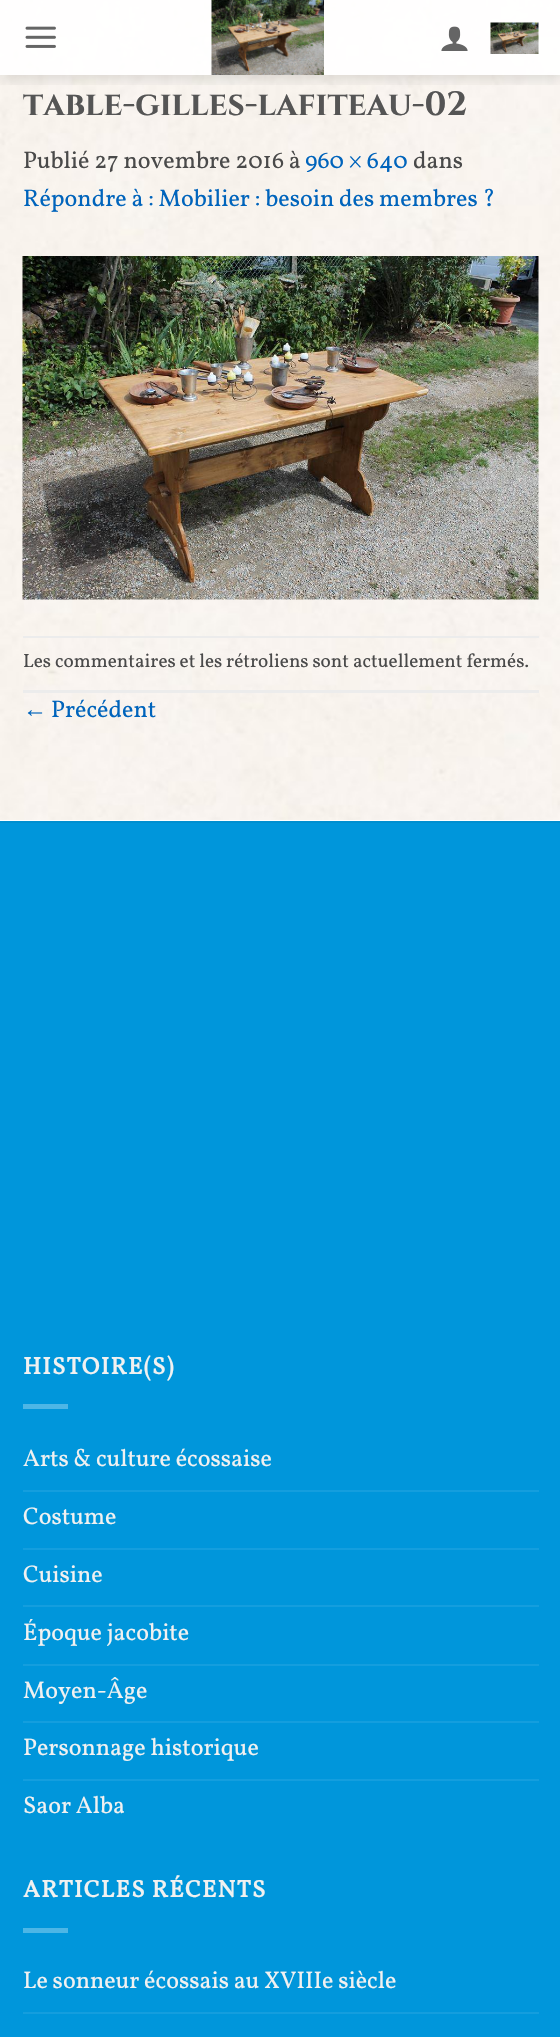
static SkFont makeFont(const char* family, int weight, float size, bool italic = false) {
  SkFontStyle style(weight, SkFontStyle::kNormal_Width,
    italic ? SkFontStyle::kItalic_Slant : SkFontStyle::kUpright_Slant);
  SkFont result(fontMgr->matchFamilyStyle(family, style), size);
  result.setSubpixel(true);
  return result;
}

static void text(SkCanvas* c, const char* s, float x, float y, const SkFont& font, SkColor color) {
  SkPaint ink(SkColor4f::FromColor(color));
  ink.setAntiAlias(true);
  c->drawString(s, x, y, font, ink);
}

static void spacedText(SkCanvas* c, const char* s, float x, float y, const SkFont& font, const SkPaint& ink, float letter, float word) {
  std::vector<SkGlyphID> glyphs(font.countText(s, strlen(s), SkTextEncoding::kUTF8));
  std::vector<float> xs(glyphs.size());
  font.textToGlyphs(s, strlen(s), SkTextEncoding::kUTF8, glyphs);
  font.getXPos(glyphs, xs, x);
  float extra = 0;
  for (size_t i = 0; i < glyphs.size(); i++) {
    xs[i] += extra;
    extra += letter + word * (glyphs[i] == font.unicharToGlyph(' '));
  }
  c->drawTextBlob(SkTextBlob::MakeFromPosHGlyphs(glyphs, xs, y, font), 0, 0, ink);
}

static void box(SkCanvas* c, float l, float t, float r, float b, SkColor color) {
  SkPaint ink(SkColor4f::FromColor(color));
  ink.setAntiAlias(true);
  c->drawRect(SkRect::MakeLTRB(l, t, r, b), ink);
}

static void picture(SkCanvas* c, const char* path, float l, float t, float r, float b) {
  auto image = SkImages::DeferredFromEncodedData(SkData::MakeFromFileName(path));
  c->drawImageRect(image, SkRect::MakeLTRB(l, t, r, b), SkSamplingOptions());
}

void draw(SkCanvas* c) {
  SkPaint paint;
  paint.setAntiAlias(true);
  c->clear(0xffffffff);
  picture(c, "img_01.png", 0, 0, 560, 37);
  picture(c, "img_06.png", 0, 37, 560, 820);
  c->save();
  c->clipRect(SkRect::MakeLTRB(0, 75, 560, 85));
  paint.setColor(0x26000000);
  paint.setMaskFilter(SkMaskFilter::MakeBlur(kNormal_SkBlurStyle, 7.5f));
  c->drawRect(SkRect::MakeLTRB(2, 2, 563, 77), paint);
  paint.setMaskFilter(nullptr);
  c->restore();
  box(c, 0, 0, 560, 75, 0xe6ffffff);
  picture(c, "img_02.png", 25, 26, 56, 48);
  picture(c, "img_03.png", 211, 0, 324, 75);
  picture(c, "img_04.png", 441, 26, 468, 51);
  picture(c, "img_05.png", 490, 22, 539, 54);
  SkFont face1 = makeFont("Cinzel", 700, 33.6f);
  text(c, "table-gilles-lafiteau-02", 23, 115, face1, 0xff555555);
  SkFont face2 = makeFont("Vollkorn", 400, 24);
  text(c, "Publié 27 novembre 2016 à", 23, 168, face2, 0xff4a4a4a);
  text(c, "960 × 640", 305, 168, face2, 0xff0064bc);
  text(c, "dans", 413, 168, face2, 0xff4a4a4a);
  text(c, "Répondre à : Mobilier : besoin des membres ?", 23, 206, face2, 0xff0064bc);
  picture(c, "img_07.png", 22, 256, 539, 600);
  box(c, 23, 636, 539, 638, 0xffececec);
  box(c, 23, 690, 539, 693, 0xffececec);
  SkFont face3 = makeFont("Vollkorn", 400, 19.2f);
  text(c, "Les commentaires et les rétroliens sont actuellement fermés.", 23, 667, face3, 0xff4a4a4a);
  SkFont face4 = makeFont("Liberation Sans", 400, 24);
  text(c, "←", 23, 717, face4, 0xff0064bc);
  text(c, "Précédent", 51, 717, face2, 0xff0064bc);
  box(c, 0, 823, 560, 2037, 0xff0096db);
  box(c, 0, 821, 560, 823, 0xff008fd0);
  SkFont face5 = makeFont("Vollkorn", 700, 24);
  paint.setColor(0xfff1f1f1);
  spacedText(c, "HISTOIRE(S)", 23, 1374, face5, paint, 1.25f, 0);
  box(c, 23, 1404, 68, 1409, 0xff4db6e6);
  text(c, "Arts & culture écossaise", 23, 1466, face2, 0xfff1f1f1);
  box(c, 23, 1490, 539, 1492, 0xff149ede);
  text(c, "Costume", 23, 1524, face2, 0xfff1f1f1);
  box(c, 23, 1548, 539, 1550, 0xff149ede);
  text(c, "Cuisine", 23, 1582, face2, 0xfff1f1f1);
  box(c, 23, 1605, 539, 1607, 0xff149ede);
  text(c, "Époque jacobite", 23, 1640, face2, 0xfff1f1f1);
  box(c, 23, 1664, 539, 1666, 0xff149ede);
  text(c, "Moyen-Âge", 23, 1698, face2, 0xfff1f1f1);
  box(c, 23, 1721, 539, 1723, 0xff149ede);
  text(c, "Personnage historique", 23, 1755, face2, 0xfff1f1f1);
  box(c, 23, 1779, 539, 1781, 0xff149ede);
  text(c, "Saor Alba", 23, 1813, face2, 0xfff1f1f1);
  spacedText(c, "ARTICLES RÉCENTS", 23, 1897, face5, paint, 1.25f, 0);
  box(c, 23, 1928, 68, 1933, 0xff4db6e6);
  text(c, "Le sonneur écossais au XVIIIe siècle", 23, 1988, face2, 0xfff1f1f1);
  box(c, 23, 2012, 539, 2014, 0xff149ede);
}
